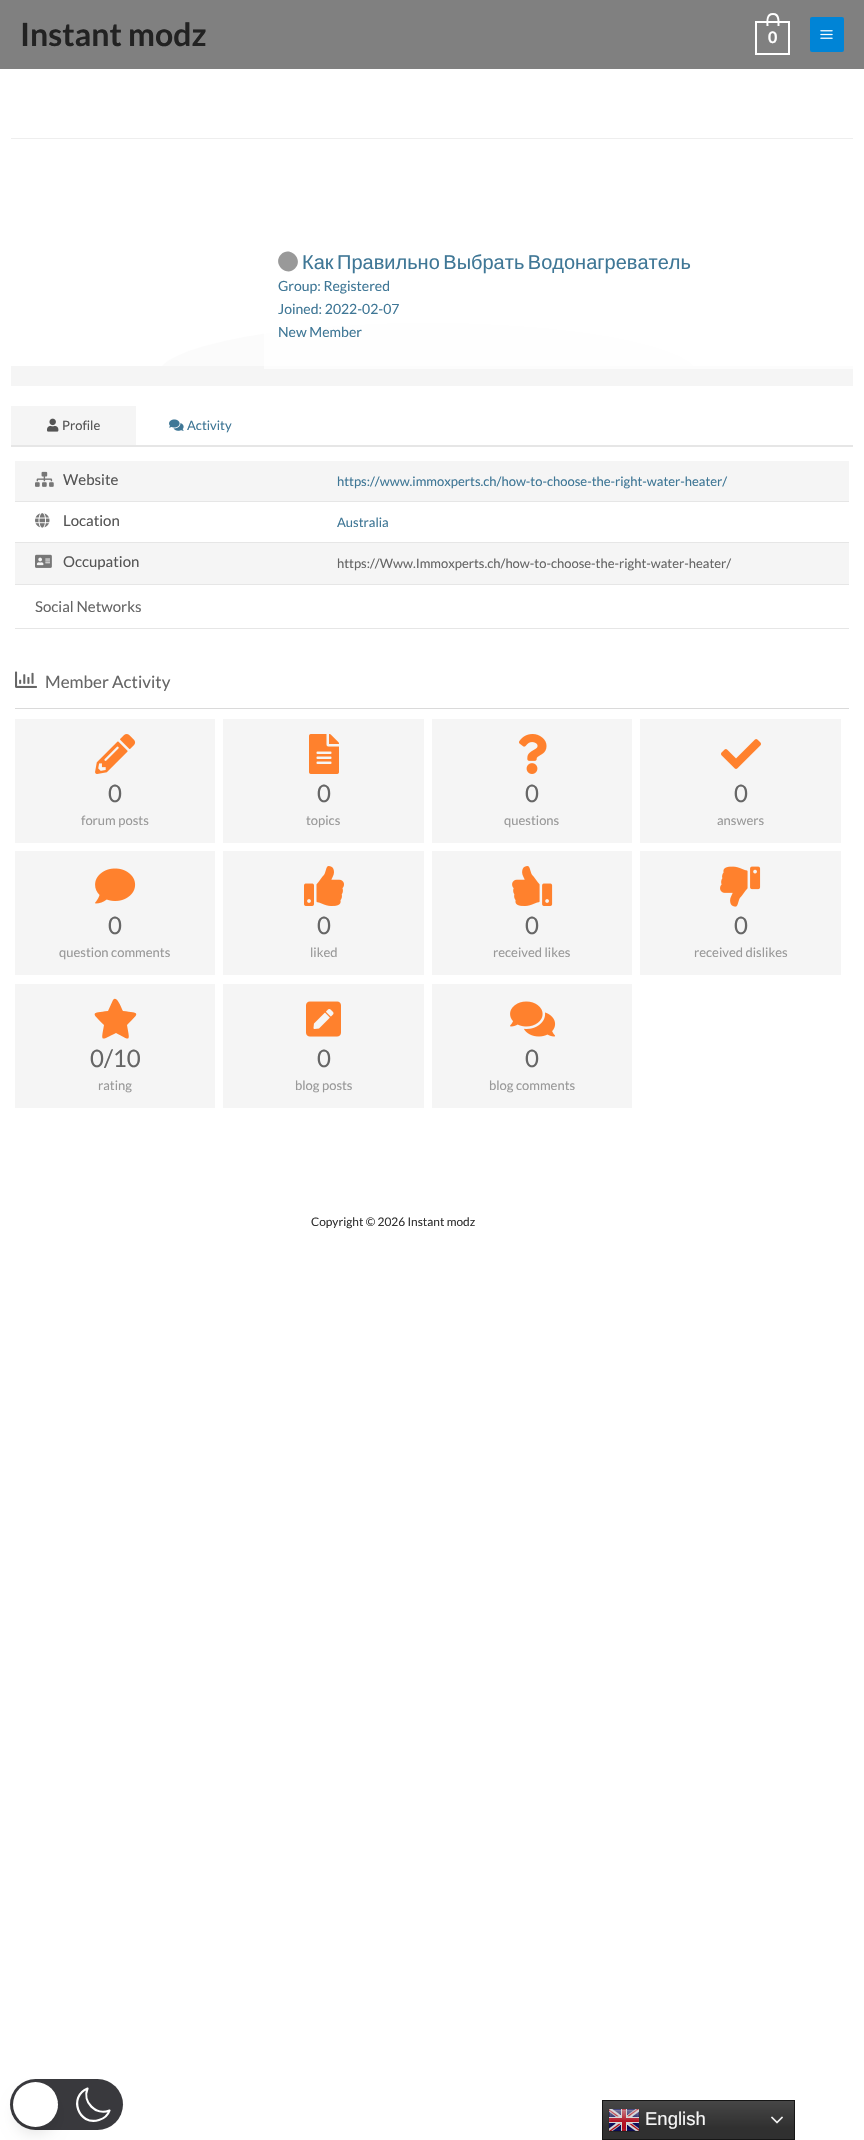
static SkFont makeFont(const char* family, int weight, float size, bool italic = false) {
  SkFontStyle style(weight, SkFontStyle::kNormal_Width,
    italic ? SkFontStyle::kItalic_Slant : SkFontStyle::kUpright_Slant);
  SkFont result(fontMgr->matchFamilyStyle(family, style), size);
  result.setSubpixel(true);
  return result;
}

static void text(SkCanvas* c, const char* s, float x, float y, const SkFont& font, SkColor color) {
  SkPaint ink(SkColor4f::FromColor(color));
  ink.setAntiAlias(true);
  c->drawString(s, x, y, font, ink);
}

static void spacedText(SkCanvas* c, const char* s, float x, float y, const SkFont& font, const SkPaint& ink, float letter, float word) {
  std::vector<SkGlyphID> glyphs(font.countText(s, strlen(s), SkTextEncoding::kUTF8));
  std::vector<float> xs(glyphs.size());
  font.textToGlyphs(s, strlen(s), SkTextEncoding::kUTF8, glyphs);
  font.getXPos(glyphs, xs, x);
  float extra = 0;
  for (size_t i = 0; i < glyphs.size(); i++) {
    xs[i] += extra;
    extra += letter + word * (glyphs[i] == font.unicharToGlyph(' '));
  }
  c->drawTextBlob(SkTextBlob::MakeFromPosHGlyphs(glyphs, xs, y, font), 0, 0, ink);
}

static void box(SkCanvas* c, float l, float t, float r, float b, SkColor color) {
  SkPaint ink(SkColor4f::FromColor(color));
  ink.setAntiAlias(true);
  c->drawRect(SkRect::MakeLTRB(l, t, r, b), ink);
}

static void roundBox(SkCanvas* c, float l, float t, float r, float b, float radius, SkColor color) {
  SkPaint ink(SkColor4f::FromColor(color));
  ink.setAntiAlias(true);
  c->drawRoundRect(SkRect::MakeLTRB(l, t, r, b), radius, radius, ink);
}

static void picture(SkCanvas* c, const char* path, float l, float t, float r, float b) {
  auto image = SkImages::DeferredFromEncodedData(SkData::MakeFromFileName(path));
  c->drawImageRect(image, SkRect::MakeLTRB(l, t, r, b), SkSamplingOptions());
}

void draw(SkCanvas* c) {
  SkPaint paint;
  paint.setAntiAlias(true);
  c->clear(0xffffffff);
  box(c, 0, 0, 864, 69, 0xff808080);
  SkFont face1 = makeFont("Lato", 700, 32);
  text(c, "Instant modz", 20, 46, face1, 0xff222222);
  paint.setStyle(SkPaint::kStroke_Style);
  paint.setStrokeWidth(2);
  paint.setColor(0xffffffff);
  c->drawRect(SkRect::MakeLTRB(756, 22, 789, 54), paint);
  paint.setStyle(SkPaint::kFill_Style);
  c->drawPath(SkPathBuilder(SkPathFillType::kEvenOdd).moveTo(773, 13).cubicTo(780.5f, 13, 779.5f, 21, 779.5f, 26).lineTo(766.5f, 26).cubicTo(766.5f, 21, 765.5f, 13, 773, 13).close().moveTo(773, 15).cubicTo(778.5f, 15, 777.5f, 22.5f, 777.5f, 26).lineTo(768.5f, 26).cubicTo(768.5f, 22.5f, 767, 15, 773, 15).close().detach(), paint);
  SkFont face2 = makeFont("Lato", 700, 16);
  text(c, "0", 768, 43, face2, 0xffffffff);
  roundBox(c, 810, 17, 844, 52, 2, 0xff0084d6);
  picture(c, "img_01.png", 820, 30, 833, 39);
  box(c, 11, 138, 853, 139, 0xffeeeeee);
  c->save();
  c->clipRect(SkRect::MakeLTRB(11, 138, 845, 378));
  paint.setColor(0xfffbfbfb);
  c->drawPath(SkPathBuilder().moveTo(428, 323).cubicTo(578, 323, 699, 347, 699, 376).lineTo(699, 428).lineTo(157, 428).lineTo(157, 376).cubicTo(157, 347, 278, 323, 428, 323).close().detach(), paint);
  c->restore();
  box(c, 11, 366, 853, 386, 0xfff5f5f5);
  paint.setColor(0xb3ffffff);
  c->drawPath(SkPathBuilder().moveTo(276, 229).lineTo(853, 229).lineTo(853, 369).lineTo(264, 369).lineTo(264, 232).cubicTo(264, 230, 269, 229, 276, 229).close().detach(), paint);
  paint.setColor(0xff999999);
  c->drawPath(SkPathBuilder().moveTo(281, 254.5f).cubicTo(290, 245.5f, 304, 259.5f, 295, 268.5f).cubicTo(286, 277.5f, 272, 263.5f, 281, 254.5f).close().detach(), paint);
  SkFont face3 = makeFont("Liberation Sans", 400, 20);
  paint.setColor(0xff3f7796);
  spacedText(c, "Как Правильно Выбрать Водонагреватель", 302, 269, face3, paint, 0, -2);
  SkFont face4 = makeFont("Lato", 400, 14);
  text(c, "Group: Registered", 278, 291, face4, 0xff3f7796);
  text(c, "Joined: 2022-02-07", 278, 314, face4, 0xff3f7796);
  text(c, "New Member", 278, 337, face4, 0xff3f7796);
  box(c, 11, 445, 853, 447, 0xffe6e6e6);
  box(c, 11, 406, 136, 445, 0xfff5f5f5);
  picture(c, "img_02.png", 47, 418, 59, 432);
  SkFont face5 = makeFont("Lato", 400, 13);
  text(c, "Profile", 62, 430, face5, 0xff555555);
  picture(c, "img_03.png", 169, 419, 184, 431);
  text(c, "Activity", 187, 430, face5, 0xff3f7796);
  box(c, 15, 461, 849, 501, 0xfff5f5f5);
  box(c, 15, 501, 849, 502, 0xffe6e6e6);
  picture(c, "img_04.png", 35, 471, 54, 487);
  SkFont face6 = makeFont("Lato", 400, 15);
  text(c, "Website", 63, 485, face6, 0xff555555);
  text(c, "https://www.immoxperts.ch/how-to-choose-the-right-water-heater/", 337, 486, face5, 0xff3f7796);
  box(c, 15, 542, 849, 543, 0xffe6e6e6);
  picture(c, "img_05.png", 35, 513, 50, 528);
  text(c, "Location", 63, 526, face6, 0xff555555);
  text(c, "Australia", 337, 527, face5, 0xff3f7796);
  box(c, 15, 543, 849, 584, 0xfff5f5f5);
  box(c, 15, 584, 849, 585, 0xffe6e6e6);
  picture(c, "img_06.png", 35, 554, 52, 568);
  text(c, "Occupation", 63, 567, face6, 0xff555555);
  text(c, "https://Www.Immoxperts.ch/how-to-choose-the-right-water-heater/", 337, 568, face5, 0xff666666);
  box(c, 15, 628, 849, 629, 0xffe6e6e6);
  text(c, "Social Networks", 35, 612, face6, 0xff666666);
  box(c, 15, 708, 849, 709, 0xffdadada);
  picture(c, "img_07.png", 15, 671, 37, 688);
  SkFont face7 = makeFont("Lato", 400, 17);
  text(c, "Member Activity", 45, 688, face7, 0xff666666);
  box(c, 15, 719, 215, 843, 0xfff5f5f5);
  picture(c, "img_08.png", 95, 734, 136, 774);
  SkFont face8 = makeFont("Lato", 400, 24);
  text(c, "0", 108, 802, face8, 0xff666666);
  text(c, "forum posts", 81, 825, face5, 0xff999999);
  box(c, 223, 719, 424, 843, 0xfff5f5f5);
  picture(c, "img_09.png", 309, 734, 339, 774);
  text(c, "0", 317, 802, face8, 0xff666666);
  text(c, "topics", 306, 825, face5, 0xff999999);
  box(c, 432, 719, 632, 843, 0xfff5f5f5);
  picture(c, "img_10.png", 519, 734, 547, 774);
  text(c, "0", 525, 802, face8, 0xff666666);
  text(c, "questions", 504, 825, face5, 0xff999999);
  box(c, 640, 719, 841, 843, 0xfff5f5f5);
  picture(c, "img_11.png", 721, 739, 761, 769);
  text(c, "0", 734, 802, face8, 0xff666666);
  text(c, "answers", 717, 825, face5, 0xff999999);
  box(c, 15, 851, 215, 975, 0xfff5f5f5);
  picture(c, "img_12.png", 95, 868, 136, 904);
  text(c, "0", 108, 934, face8, 0xff666666);
  text(c, "question comments", 59, 957, face5, 0xff999999);
  box(c, 223, 851, 424, 975, 0xfff5f5f5);
  picture(c, "img_13.png", 304, 866, 344, 906);
  text(c, "0", 317, 934, face8, 0xff666666);
  text(c, "liked", 310, 957, face5, 0xff999999);
  box(c, 432, 851, 632, 975, 0xfff5f5f5);
  picture(c, "img_14.png", 512, 866, 553, 906);
  text(c, "0", 525, 934, face8, 0xff666666);
  text(c, "received likes", 493, 957, face5, 0xff999999);
  box(c, 640, 851, 841, 975, 0xfff5f5f5);
  picture(c, "img_15.png", 720, 866, 761, 907);
  text(c, "0", 734, 934, face8, 0xff666666);
  text(c, "received dislikes", 694, 957, face5, 0xff999999);
  box(c, 15, 984, 215, 1108, 0xfff5f5f5);
  paint.setColor(0xffff812d);
  c->drawPath(SkPathBuilder().moveTo(113, 1000).cubicTo(117, 994, 122, 1010, 123, 1011).cubicTo(140, 1013, 140, 1012, 127, 1025).cubicTo(130, 1042, 131, 1041, 116, 1033).cubicTo(100, 1041, 101, 1042, 104, 1025).cubicTo(91, 1012, 91, 1013, 108, 1011).close().detach(), paint);
  text(c, "0/10", 90, 1067, face8, 0xff666666);
  text(c, "rating", 98, 1090, face5, 0xff999999);
  box(c, 223, 984, 424, 1108, 0xfff5f5f5);
  picture(c, "img_16.png", 306, 1001, 341, 1037);
  text(c, "0", 317, 1067, face8, 0xff666666);
  text(c, "blog posts", 295, 1090, face5, 0xff999999);
  box(c, 432, 984, 632, 1108, 0xfff5f5f5);
  picture(c, "img_17.png", 510, 1001, 556, 1037);
  text(c, "0", 525, 1067, face8, 0xff666666);
  text(c, "blog comments", 489, 1090, face5, 0xff999999);
  SkFont face9 = makeFont("Lato", 400, 11.9f);
  text(c, "Copyright © 2026 Instant modz", 311, 1226, face9, 0xff333333);
  roundBox(c, 10, 2079, 123, 2130, 25.5f, 0xff39393d);
  paint.setStyle(SkPaint::kStroke_Style);
  paint.setStrokeWidth(2.2f);
  paint.setStrokeCap(SkPaint::kRound_Cap);
  paint.setStrokeJoin(SkPaint::kRound_Join);
  paint.setColor(0xffffffff);
  c->drawPath(SkPathBuilder().moveTo(109.5f, 2110.5f).cubicTo(96, 2116, 82, 2102, 87.5f, 2088.5f).cubicTo(68, 2096.5f, 78.5f, 2126.5f, 99, 2120).cubicTo(104, 2118.5f, 108, 2115, 109.5f, 2110.5f).close().detach(), paint);
  picture(c, "img_18.png", 55, 2095, 58, 2114);
  paint.setStyle(SkPaint::kFill_Style);
  paint.setColor(0x1a000000);
  paint.setMaskFilter(SkMaskFilter::MakeBlur(kNormal_SkBlurStyle, 7.5f));
  c->drawRoundRect(SkRect::MakeLTRB(16, 2095, 55, 2134), 19.5f, 19.5f, paint);
  paint.setMaskFilter(nullptr);
  paint.setColor(0xffffffff);
  c->drawCircle(35.5f, 2104.5f, 22.5f, paint);
  {
    const SkColor colors[] = {0xff474747, 0xff303030};
    const float stops[] = {0, 0.7f};
    const SkPoint ends[] = {{699, 2100}, {699, 2140}};
    paint.setShader(SkGradientShader::MakeLinear(ends, colors, stops, 2, SkTileMode::kClamp));
    paint.setAlpha(255);
  }
  c->drawRect(SkRect::MakeLTRB(603, 2101, 794, 2139), paint);
  paint.setStyle(SkPaint::kStroke_Style);
  paint.setStrokeWidth(1);
  paint.setStrokeCap(SkPaint::kButt_Cap);
  paint.setStrokeJoin(SkPaint::kMiter_Join);
  paint.setShader(nullptr);
  paint.setColor(0xff161616);
  c->drawRect(SkRect::MakeLTRB(602.5f, 2100.5f, 794.5f, 2139.5f), paint);
  picture(c, "img_19.png", 608, 2109, 640, 2132);
  SkFont face10 = makeFont("Liberation Sans", 400, 18.5f);
  text(c, "English", 645, 2125, face10, 0xfff7f7f7);
  picture(c, "img_20.png", 771, 2116, 783, 2124);
}
